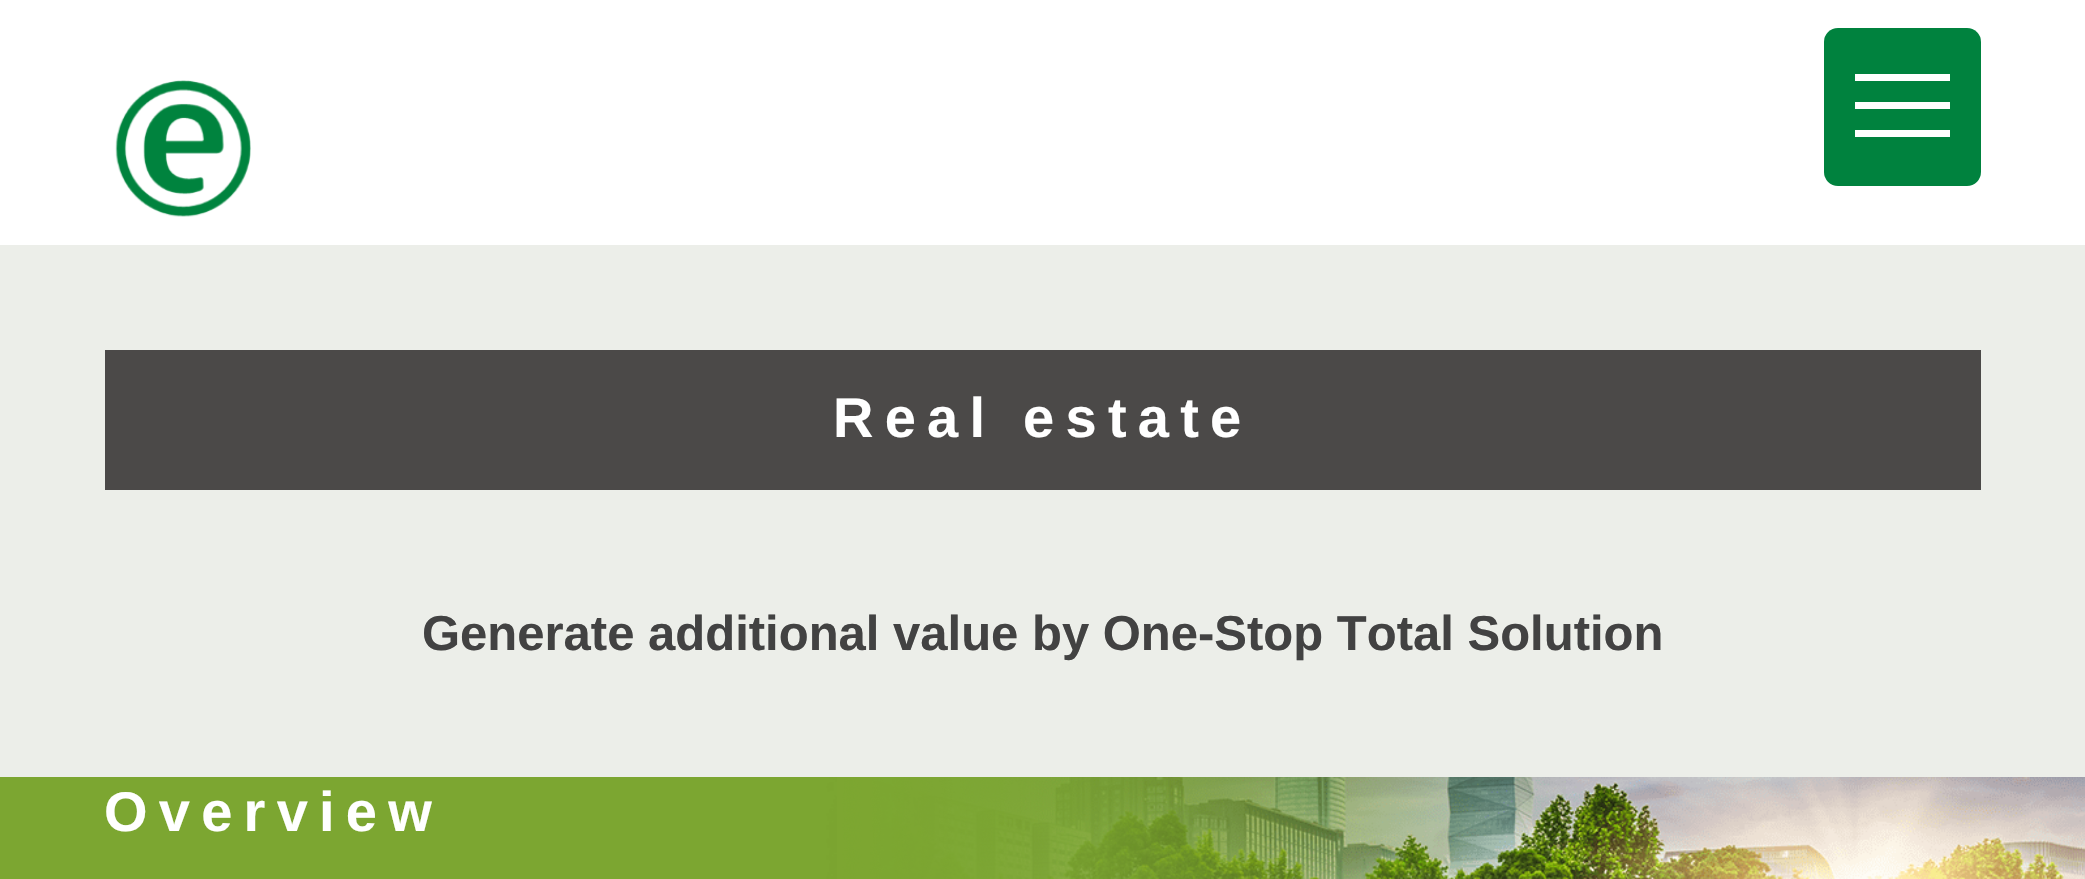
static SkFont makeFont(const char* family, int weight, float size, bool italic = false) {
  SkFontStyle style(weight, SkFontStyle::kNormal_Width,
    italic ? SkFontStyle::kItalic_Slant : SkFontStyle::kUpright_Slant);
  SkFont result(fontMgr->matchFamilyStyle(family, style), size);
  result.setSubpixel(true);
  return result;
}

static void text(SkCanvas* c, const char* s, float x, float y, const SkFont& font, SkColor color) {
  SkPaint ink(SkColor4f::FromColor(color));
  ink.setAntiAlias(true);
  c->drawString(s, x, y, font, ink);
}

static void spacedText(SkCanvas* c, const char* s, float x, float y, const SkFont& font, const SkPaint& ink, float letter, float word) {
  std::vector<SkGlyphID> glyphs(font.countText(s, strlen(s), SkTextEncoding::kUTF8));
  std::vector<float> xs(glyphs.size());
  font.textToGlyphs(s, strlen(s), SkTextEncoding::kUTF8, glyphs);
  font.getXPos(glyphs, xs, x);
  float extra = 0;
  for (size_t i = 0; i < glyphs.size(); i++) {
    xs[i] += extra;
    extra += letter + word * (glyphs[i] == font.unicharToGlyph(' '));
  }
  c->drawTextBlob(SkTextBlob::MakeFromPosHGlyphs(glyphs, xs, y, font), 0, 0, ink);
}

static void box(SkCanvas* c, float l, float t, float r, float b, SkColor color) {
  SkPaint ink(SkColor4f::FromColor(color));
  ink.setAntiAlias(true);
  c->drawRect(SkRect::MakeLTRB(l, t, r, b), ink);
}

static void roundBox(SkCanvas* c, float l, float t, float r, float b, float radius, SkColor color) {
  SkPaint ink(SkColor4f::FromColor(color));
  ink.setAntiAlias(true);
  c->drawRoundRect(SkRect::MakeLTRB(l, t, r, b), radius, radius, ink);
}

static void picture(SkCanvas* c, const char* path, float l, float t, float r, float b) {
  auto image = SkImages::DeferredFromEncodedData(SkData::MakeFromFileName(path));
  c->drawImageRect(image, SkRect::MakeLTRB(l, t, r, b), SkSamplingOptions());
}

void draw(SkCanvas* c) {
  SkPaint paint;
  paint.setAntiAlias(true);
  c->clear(0xffffffff);
  picture(c, "img_01.png", 115, 80, 251, 217);
  roundBox(c, 1824, 28, 1981, 186, 14, 0xff00823e);
  box(c, 1855, 74, 1950, 81, 0xffffffff);
  box(c, 1855, 102, 1950, 109, 0xffffffff);
  box(c, 1855, 130, 1950, 137, 0xffffffff);
  box(c, 0, 245, 2085, 777, 0xffeceee9);
  box(c, 105, 350, 1981, 490, 0xff4b4948);
  SkFont face1 = makeFont("Liberation Sans", 700, 56);
  paint.setColor(0xffffffff);
  spacedText(c, "Real estate", 833, 437, face1, paint, 11.25f, 0);
  SkFont face2 = makeFont("Liberation Sans", 700, 49);
  text(c, "Generate additional value by One-Stop Total Solution", 422, 650, face2, 0xff424242);
  picture(c, "img_02.png", 0, 777, 2085, 879);
  spacedText(c, "Overview", 104, 831, face1, paint, 11.25f, 0);
  picture(c, "img_03.png", 837, 777, 1566, 879);
}
